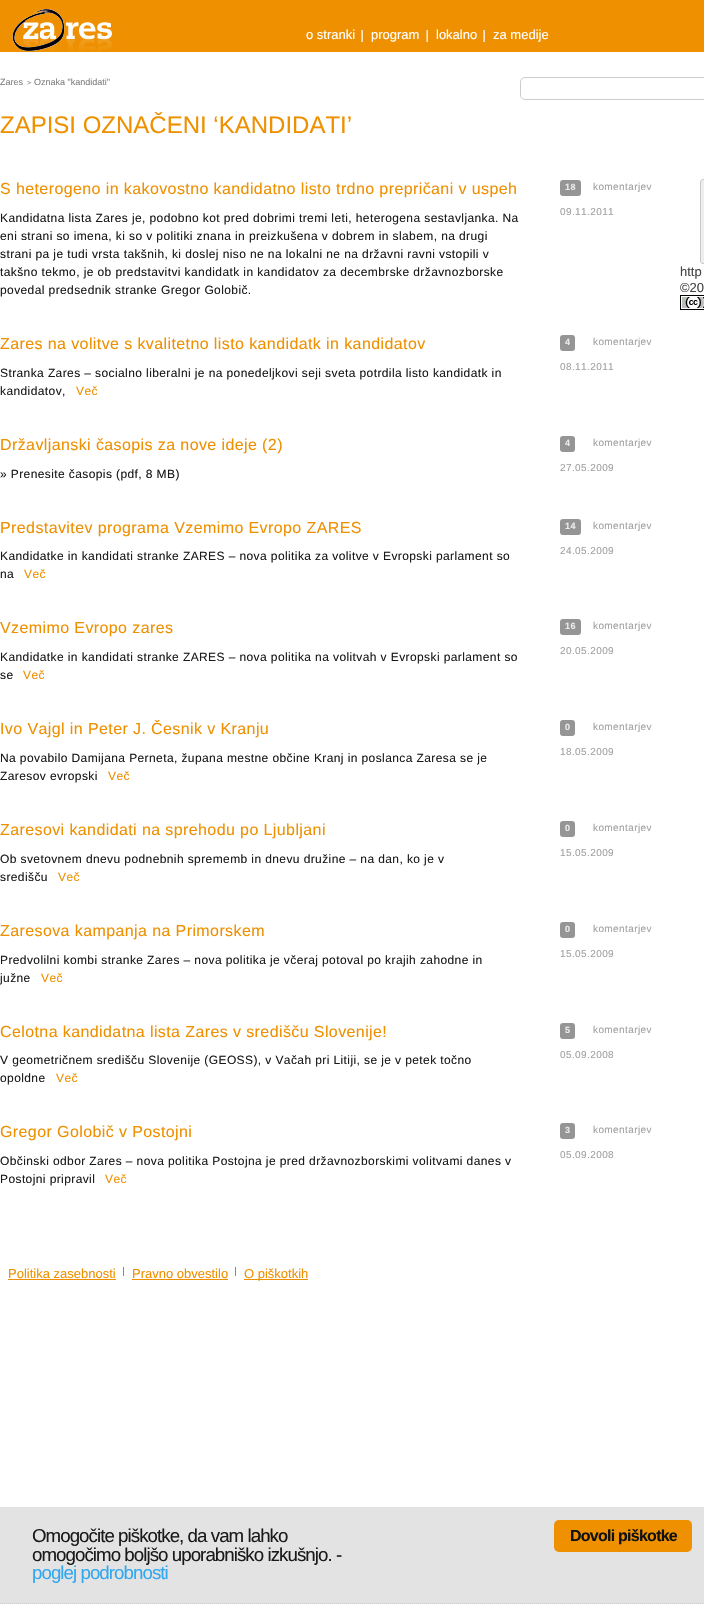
static SkFont makeFont(const char* family, int weight, float size, bool italic = false) {
  SkFontStyle style(weight, SkFontStyle::kNormal_Width,
    italic ? SkFontStyle::kItalic_Slant : SkFontStyle::kUpright_Slant);
  SkFont result(fontMgr->matchFamilyStyle(family, style), size);
  result.setSubpixel(true);
  return result;
}

static void text(SkCanvas* c, const char* s, float x, float y, const SkFont& font, SkColor color) {
  SkPaint ink(SkColor4f::FromColor(color));
  ink.setAntiAlias(true);
  c->drawString(s, x, y, font, ink);
}

static void spacedText(SkCanvas* c, const char* s, float x, float y, const SkFont& font, const SkPaint& ink, float letter, float word) {
  std::vector<SkGlyphID> glyphs(font.countText(s, strlen(s), SkTextEncoding::kUTF8));
  std::vector<float> xs(glyphs.size());
  font.textToGlyphs(s, strlen(s), SkTextEncoding::kUTF8, glyphs);
  font.getXPos(glyphs, xs, x);
  float extra = 0;
  for (size_t i = 0; i < glyphs.size(); i++) {
    xs[i] += extra;
    extra += letter + word * (glyphs[i] == font.unicharToGlyph(' '));
  }
  c->drawTextBlob(SkTextBlob::MakeFromPosHGlyphs(glyphs, xs, y, font), 0, 0, ink);
}

static void box(SkCanvas* c, float l, float t, float r, float b, SkColor color) {
  SkPaint ink(SkColor4f::FromColor(color));
  ink.setAntiAlias(true);
  c->drawRect(SkRect::MakeLTRB(l, t, r, b), ink);
}

static void roundBox(SkCanvas* c, float l, float t, float r, float b, float radius, SkColor color) {
  SkPaint ink(SkColor4f::FromColor(color));
  ink.setAntiAlias(true);
  c->drawRoundRect(SkRect::MakeLTRB(l, t, r, b), radius, radius, ink);
}

static void picture(SkCanvas* c, const char* path, float l, float t, float r, float b) {
  auto image = SkImages::DeferredFromEncodedData(SkData::MakeFromFileName(path));
  c->drawImageRect(image, SkRect::MakeLTRB(l, t, r, b), SkSamplingOptions());
}

void draw(SkCanvas* c) {
  SkPaint paint;
  paint.setAntiAlias(true);
  c->clear(0xffffffff);
  box(c, 0, 0, 704, 52, 0xffee9000);
  picture(c, "img_01.png", 12, 9, 118, 52);
  picture(c, "img_02.png", 361, 30, 363, 42);
  SkFont face1 = makeFont("Liberation Sans", 400, 13);
  text(c, "o stranki", 306, 39, face1, 0xffffffff);
  picture(c, "img_02.png", 426, 30, 428, 42);
  text(c, "program", 371, 39, face1, 0xffffffff);
  picture(c, "img_02.png", 483, 30, 485, 42);
  text(c, "lokalno", 436, 39, face1, 0xffffffff);
  text(c, "za medije", 493, 39, face1, 0xffffffff);
  SkFont face2 = makeFont("Liberation Sans", 400, 9);
  text(c, "Zares", 0, 85, face2, 0xff808080);
  SkFont face3 = makeFont("Liberation Sans", 400, 7);
  text(c, ">", 27, 85, face3, 0xff808080);
  text(c, "Oznaka \"kandidati\"", 34, 85, face2, 0xff808080);
  paint.setStyle(SkPaint::kStroke_Style);
  paint.setStrokeWidth(1);
  paint.setColor(0xffcccccc);
  c->drawRoundRect(SkRect::MakeLTRB(520.5f, 77.5f, 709.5f, 99.5f), 4.5f, 4.5f, paint);
  SkFont face4 = makeFont("Liberation Sans", 400, 24);
  text(c, "ZAPISI OZNAČENI ‘KANDIDATI’", 0, 133, face4, 0xffee9000);
  SkFont face5 = makeFont("Liberation Sans", 400, 16);
  paint.setStyle(SkPaint::kFill_Style);
  paint.setColor(0xffee9000);
  spacedText(c, "S heterogeno in kakovostno kandidatno listo trdno prepričani v uspeh", 0, 194, face5, paint, 0.4f, 0);
  SkFont face6 = makeFont("Liberation Sans", 400, 12);
  paint.setColor(0xff1a1a1a);
  spacedText(c, "Kandidatna lista Zares je, podobno kot pred dobrimi tremi leti, heterogena sestavljanka. Na", 0, 222, face6, paint, 0.4f, 0);
  spacedText(c, "eni strani so imena, ki so v politiki znana in preizkušena v dobrem in slabem, na drugi", 0, 240, face6, paint, 0.4f, 0);
  spacedText(c, "strani pa je tudi vrsta takšnih, ki doslej niso ne na lokalni ne na državni ravni vstopili v", 0, 258, face6, paint, 0.4f, 0);
  spacedText(c, "takšno tekmo, je ob predstavitvi kandidatk in kandidatov za decembrske državnozborske", 0, 276, face6, paint, 0.4f, 0);
  spacedText(c, "povedal predsednik stranke Gregor Golobič.", 0, 294, face6, paint, 0.4f, 0);
  roundBox(c, 560, 180, 581, 196, 3, 0xff959595);
  SkFont face7 = makeFont("Liberation Sans", 700, 9);
  paint.setColor(0xffeaeaea);
  spacedText(c, "18", 565, 190, face7, paint, 0.4f, 0);
  SkFont face8 = makeFont("Liberation Sans", 400, 10);
  paint.setColor(0xffa2a2a2);
  spacedText(c, "komentarjev", 593, 190, face8, paint, 0.4f, 0);
  spacedText(c, "09.11.2011", 560, 215, face8, paint, 0.4f, 0);
  paint.setColor(0xffee9000);
  spacedText(c, "Zares na volitve s kvalitetno listo kandidatk in kandidatov", 0, 349, face5, paint, 0.4f, 0);
  paint.setColor(0xff1a1a1a);
  spacedText(c, "Stranka Zares – socialno liberalni je na ponedeljkovi seji sveta potrdila listo kandidatk in", 0, 377, face6, paint, 0.4f, 0);
  spacedText(c, "kandidatov,", 0, 395, face6, paint, 0.4f, 0);
  paint.setColor(0xffee9000);
  spacedText(c, "Več", 76, 395, face6, paint, 0.4f, 0);
  roundBox(c, 560, 335, 575, 351, 3, 0xff959595);
  paint.setColor(0xffeaeaea);
  spacedText(c, "4", 565, 345, face7, paint, 0.4f, 0);
  paint.setColor(0xffa2a2a2);
  spacedText(c, "komentarjev", 593, 345, face8, paint, 0.4f, 0);
  spacedText(c, "08.11.2011", 560, 370, face8, paint, 0.4f, 0);
  paint.setColor(0xffee9000);
  spacedText(c, "Državljanski časopis za nove ideje (2)", 0, 450, face5, paint, 0.4f, 0);
  paint.setColor(0xff1a1a1a);
  spacedText(c, "» Prenesite časopis (pdf, 8 MB)", 0, 478, face6, paint, 0.4f, 0);
  roundBox(c, 560, 436, 575, 452, 3, 0xff959595);
  paint.setColor(0xffeaeaea);
  spacedText(c, "4", 565, 446, face7, paint, 0.4f, 0);
  paint.setColor(0xffa2a2a2);
  spacedText(c, "komentarjev", 593, 446, face8, paint, 0.4f, 0);
  spacedText(c, "27.05.2009", 560, 471, face8, paint, 0.4f, 0);
  paint.setColor(0xffee9000);
  spacedText(c, "Predstavitev programa Vzemimo Evropo ZARES", 0, 533, face5, paint, 0.4f, 0);
  paint.setColor(0xff1a1a1a);
  spacedText(c, "Kandidatke in kandidati stranke ZARES – nova politika za volitve v Evropski parlament so", 0, 560, face6, paint, 0.4f, 0);
  spacedText(c, "na", 0, 578, face6, paint, 0.4f, 0);
  paint.setColor(0xffee9000);
  spacedText(c, "Več", 24, 578, face6, paint, 0.4f, 0);
  roundBox(c, 560, 519, 581, 535, 3, 0xff959595);
  paint.setColor(0xffeaeaea);
  spacedText(c, "14", 565, 529, face7, paint, 0.4f, 0);
  paint.setColor(0xffa2a2a2);
  spacedText(c, "komentarjev", 593, 529, face8, paint, 0.4f, 0);
  spacedText(c, "24.05.2009", 560, 554, face8, paint, 0.4f, 0);
  paint.setColor(0xffee9000);
  spacedText(c, "Vzemimo Evropo zares", 0, 633, face5, paint, 0.4f, 0);
  paint.setColor(0xff1a1a1a);
  spacedText(c, "Kandidatke in kandidati stranke ZARES – nova politika na volitvah v Evropski parlament so", 0, 661, face6, paint, 0.4f, 0);
  spacedText(c, "se", 0, 679, face6, paint, 0.4f, 0);
  paint.setColor(0xffee9000);
  spacedText(c, "Več", 23, 679, face6, paint, 0.4f, 0);
  roundBox(c, 560, 619, 581, 635, 3, 0xff959595);
  paint.setColor(0xffeaeaea);
  spacedText(c, "16", 565, 629, face7, paint, 0.4f, 0);
  paint.setColor(0xffa2a2a2);
  spacedText(c, "komentarjev", 593, 629, face8, paint, 0.4f, 0);
  spacedText(c, "20.05.2009", 560, 654, face8, paint, 0.4f, 0);
  paint.setColor(0xffee9000);
  spacedText(c, "Ivo Vajgl in Peter J. Česnik v Kranju", 0, 734, face5, paint, 0.4f, 0);
  paint.setColor(0xff1a1a1a);
  spacedText(c, "Na povabilo Damijana Perneta, župana mestne občine Kranj in poslanca Zaresa se je", 0, 762, face6, paint, 0.4f, 0);
  spacedText(c, "Zaresov evropski", 0, 780, face6, paint, 0.4f, 0);
  paint.setColor(0xffee9000);
  spacedText(c, "Več", 108, 780, face6, paint, 0.4f, 0);
  roundBox(c, 560, 720, 575, 736, 3, 0xff959595);
  paint.setColor(0xffeaeaea);
  spacedText(c, "0", 565, 730, face7, paint, 0.4f, 0);
  paint.setColor(0xffa2a2a2);
  spacedText(c, "komentarjev", 593, 730, face8, paint, 0.4f, 0);
  spacedText(c, "18.05.2009", 560, 755, face8, paint, 0.4f, 0);
  paint.setColor(0xffee9000);
  spacedText(c, "Zaresovi kandidati na sprehodu po Ljubljani", 0, 835, face5, paint, 0.4f, 0);
  paint.setColor(0xff1a1a1a);
  spacedText(c, "Ob svetovnem dnevu podnebnih sprememb in dnevu družine – na dan, ko je v", 0, 863, face6, paint, 0.4f, 0);
  spacedText(c, "središču", 0, 881, face6, paint, 0.4f, 0);
  paint.setColor(0xffee9000);
  spacedText(c, "Več", 58, 881, face6, paint, 0.4f, 0);
  roundBox(c, 560, 821, 575, 837, 3, 0xff959595);
  paint.setColor(0xffeaeaea);
  spacedText(c, "0", 565, 831, face7, paint, 0.4f, 0);
  paint.setColor(0xffa2a2a2);
  spacedText(c, "komentarjev", 593, 831, face8, paint, 0.4f, 0);
  spacedText(c, "15.05.2009", 560, 856, face8, paint, 0.4f, 0);
  paint.setColor(0xffee9000);
  spacedText(c, "Zaresova kampanja na Primorskem", 0, 936, face5, paint, 0.4f, 0);
  paint.setColor(0xff1a1a1a);
  spacedText(c, "Predvolilni kombi stranke Zares – nova politika je včeraj potoval po krajih zahodne in", 0, 964, face6, paint, 0.4f, 0);
  spacedText(c, "južne", 0, 982, face6, paint, 0.4f, 0);
  paint.setColor(0xffee9000);
  spacedText(c, "Več", 41, 982, face6, paint, 0.4f, 0);
  roundBox(c, 560, 922, 575, 938, 3, 0xff959595);
  paint.setColor(0xffeaeaea);
  spacedText(c, "0", 565, 932, face7, paint, 0.4f, 0);
  paint.setColor(0xffa2a2a2);
  spacedText(c, "komentarjev", 593, 932, face8, paint, 0.4f, 0);
  spacedText(c, "15.05.2009", 560, 957, face8, paint, 0.4f, 0);
  paint.setColor(0xffee9000);
  spacedText(c, "Celotna kandidatna lista Zares v središču Slovenije!", 0, 1037, face5, paint, 0.4f, 0);
  paint.setColor(0xff1a1a1a);
  spacedText(c, "V geometričnem središču Slovenije (GEOSS), v Vačah pri Litiji, se je v petek točno", 0, 1064, face6, paint, 0.4f, 0);
  spacedText(c, "opoldne", 0, 1082, face6, paint, 0.4f, 0);
  paint.setColor(0xffee9000);
  spacedText(c, "Več", 56, 1082, face6, paint, 0.4f, 0);
  roundBox(c, 560, 1023, 575, 1039, 3, 0xff959595);
  paint.setColor(0xffeaeaea);
  spacedText(c, "5", 565, 1033, face7, paint, 0.4f, 0);
  paint.setColor(0xffa2a2a2);
  spacedText(c, "komentarjev", 593, 1033, face8, paint, 0.4f, 0);
  spacedText(c, "05.09.2008", 560, 1058, face8, paint, 0.4f, 0);
  paint.setColor(0xffee9000);
  spacedText(c, "Gregor Golobič v Postojni", 0, 1137, face5, paint, 0.4f, 0);
  paint.setColor(0xff1a1a1a);
  spacedText(c, "Občinski odbor Zares – nova politika Postojna je pred državnozborskimi volitvami danes v", 0, 1165, face6, paint, 0.4f, 0);
  spacedText(c, "Postojni pripravil", 0, 1183, face6, paint, 0.4f, 0);
  paint.setColor(0xffee9000);
  spacedText(c, "Več", 105, 1183, face6, paint, 0.4f, 0);
  roundBox(c, 560, 1123, 575, 1139, 3, 0xff959595);
  paint.setColor(0xffeaeaea);
  spacedText(c, "3", 565, 1133, face7, paint, 0.4f, 0);
  paint.setColor(0xffa2a2a2);
  spacedText(c, "komentarjev", 593, 1133, face8, paint, 0.4f, 0);
  spacedText(c, "05.09.2008", 560, 1158, face8, paint, 0.4f, 0);
  text(c, "http", 680, 276, face1, 0xff444444);
  roundBox(c, 701, 180, 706, 263, 2, 0xffeeeeee);
  paint.setStyle(SkPaint::kStroke_Style);
  paint.setColor(0xffc8c8c8);
  c->drawRoundRect(SkRect::MakeLTRB(700.5f, 179.5f, 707.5f, 263.5f), 2.5f, 2.5f, paint);
  text(c, "©20", 680, 292, face1, 0xff444444);
  picture(c, "img_03.png", 680, 295, 704, 310);
  box(c, 123, 1267, 124, 1276, 0xff878787);
  text(c, "Politika zasebnosti", 8, 1278, face1, 0xffee9000);
  box(c, 8, 1279, 116, 1280, 0xffee9000);
  box(c, 235, 1267, 236, 1276, 0xff878787);
  text(c, "Pravno obvestilo", 132, 1278, face1, 0xffee9000);
  box(c, 132, 1279, 228, 1280, 0xffee9000);
  box(c, 244, 1279, 308, 1280, 0xffee9000);
  text(c, "O piškotkih", 244, 1278, face1, 0xffee9000);
  box(c, 0, 1507, 704, 1604, 0xffe3e3e3);
  paint.setColor(0xffcccccc);
  paint.setPathEffect(SkDashPathEffect::Make({{1, 1}}, 0));
  c->drawPath(SkPathBuilder().moveTo(0, 1603.5f).lineTo(704, 1603.5f).detach(), paint);
  paint.setPathEffect(nullptr);
  SkFont face9 = makeFont("Liberation Sans", 400, 18.7f);
  paint.setStyle(SkPaint::kFill_Style);
  paint.setColor(0xff1a1a1a);
  spacedText(c, "Omogočite piškotke, da vam lahko", 32, 1542, face9, paint, -0.95f, 0);
  spacedText(c, "omogočimo boljšo uporabniško izkušnjo. -", 32, 1561, face9, paint, -0.95f, 0);
  paint.setColor(0xff31a8f0);
  spacedText(c, "poglej podrobnosti", 32, 1579, face9, paint, -0.95f, 0);
  roundBox(c, 554, 1520, 692, 1552, 5, 0xffee9000);
  SkFont face10 = makeFont("Liberation Sans", 700, 16);
  paint.setColor(0xff111111);
  spacedText(c, "Dovoli piškotke", 570, 1541, face10, paint, -0.75f, 0);
}
